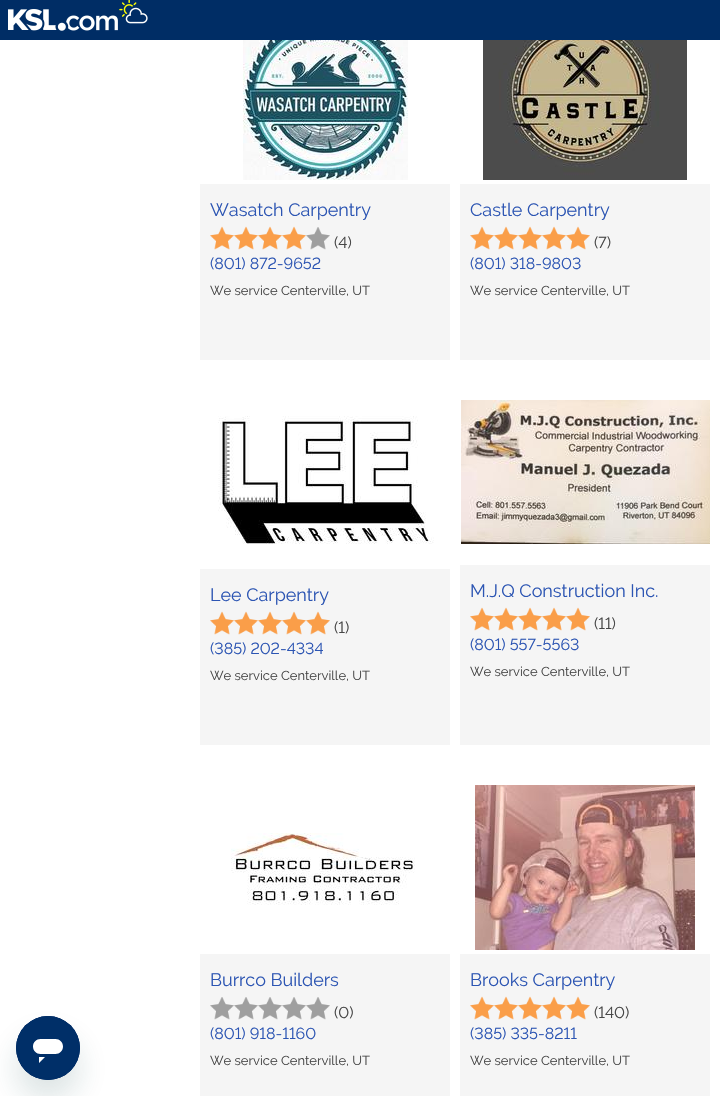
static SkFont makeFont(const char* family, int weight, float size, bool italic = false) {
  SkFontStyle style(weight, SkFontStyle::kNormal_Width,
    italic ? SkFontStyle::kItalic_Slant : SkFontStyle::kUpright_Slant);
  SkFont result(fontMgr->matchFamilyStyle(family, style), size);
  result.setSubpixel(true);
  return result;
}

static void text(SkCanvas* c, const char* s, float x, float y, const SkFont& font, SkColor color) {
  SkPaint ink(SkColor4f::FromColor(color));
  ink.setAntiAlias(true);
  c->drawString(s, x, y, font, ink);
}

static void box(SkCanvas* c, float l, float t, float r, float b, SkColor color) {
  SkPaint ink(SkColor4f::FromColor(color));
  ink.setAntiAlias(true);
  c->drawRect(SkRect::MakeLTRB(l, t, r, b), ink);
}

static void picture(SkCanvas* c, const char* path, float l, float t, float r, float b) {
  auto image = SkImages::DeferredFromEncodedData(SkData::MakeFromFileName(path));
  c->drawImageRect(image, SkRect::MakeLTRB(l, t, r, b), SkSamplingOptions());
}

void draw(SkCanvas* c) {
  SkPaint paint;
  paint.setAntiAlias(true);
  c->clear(0xffffffff);
  paint.setColor(0x2617494d);
  paint.setMaskFilter(SkMaskFilter::MakeBlur(kNormal_SkBlurStyle, 15));
  c->drawRoundRect(SkRect::MakeLTRB(16, 1036, 80, 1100), 32, 32, paint);
  paint.setMaskFilter(nullptr);
  picture(c, "img_01.png", 16, 1016, 80, 1080);
  box(c, 0, 0, 720, 40, 0xff002d65);
  picture(c, "img_02.png", 8, 9, 118, 31);
  picture(c, "img_03.png", 119, 0, 148, 24);
  box(c, 200, 184, 450, 360, 0xfff5f5f5);
  picture(c, "img_04.png", 243, 40, 408, 180);
  SkFont face1 = makeFont("Raleway", 400, 18);
  text(c, "Wasatch Carpentry", 210, 216, face1, 0xff2c55b3);
  picture(c, "img_05.png", 210, 226, 234, 250);
  picture(c, "img_05.png", 234, 226, 258, 250);
  picture(c, "img_06.png", 258, 226, 282, 250);
  picture(c, "img_07.png", 282, 226, 306, 250);
  picture(c, "img_08.png", 306, 227, 330, 250);
  SkFont face2 = makeFont("Raleway", 400, 16);
  text(c, "(4)", 334, 248, face2, 0xff464646);
  text(c, "(801) 872-9652", 210, 269, face2, 0xff2c55b3);
  SkFont face3 = makeFont("Raleway", 400, 13);
  text(c, "We service Centerville, UT", 210, 295, face3, 0xff464646);
  box(c, 460, 184, 710, 360, 0xfff5f5f5);
  picture(c, "img_09.png", 483, 40, 687, 180);
  text(c, "Castle Carpentry", 470, 216, face1, 0xff2c55b3);
  picture(c, "img_05.png", 470, 226, 494, 250);
  picture(c, "img_05.png", 494, 226, 518, 250);
  picture(c, "img_10.png", 518, 226, 542, 250);
  picture(c, "img_07.png", 542, 226, 566, 250);
  picture(c, "img_07.png", 566, 226, 590, 250);
  text(c, "(7)", 594, 248, face2, 0xff464646);
  text(c, "(801) 318-9803", 470, 269, face2, 0xff2c55b3);
  text(c, "We service Centerville, UT", 470, 295, face3, 0xff464646);
  box(c, 200, 569, 450, 745, 0xfff5f5f5);
  picture(c, "img_11.png", 218, 416, 434, 544);
  text(c, "Lee Carpentry", 210, 601, face1, 0xff2c55b3);
  picture(c, "img_05.png", 210, 611, 234, 635);
  picture(c, "img_05.png", 234, 611, 258, 635);
  picture(c, "img_06.png", 258, 611, 282, 635);
  picture(c, "img_07.png", 282, 611, 306, 635);
  picture(c, "img_07.png", 306, 611, 330, 635);
  text(c, "(1)", 334, 633, face2, 0xff464646);
  text(c, "(385) 202-4334", 210, 654, face2, 0xff2c55b3);
  text(c, "We service Centerville, UT", 210, 680, face3, 0xff464646);
  box(c, 460, 565, 710, 745, 0xfff5f5f5);
  picture(c, "img_12.png", 461, 400, 710, 544);
  text(c, "M.J.Q Construction Inc.", 470, 597, face1, 0xff2c55b3);
  picture(c, "img_05.png", 470, 607, 494, 631);
  picture(c, "img_05.png", 494, 607, 518, 631);
  picture(c, "img_10.png", 518, 607, 542, 631);
  picture(c, "img_07.png", 542, 607, 566, 631);
  picture(c, "img_07.png", 566, 607, 590, 631);
  text(c, "(11)", 594, 629, face2, 0xff464646);
  text(c, "(801) 557-5563", 470, 650, face2, 0xff2c55b3);
  text(c, "We service Centerville, UT", 470, 676, face3, 0xff464646);
  box(c, 200, 954, 450, 1096, 0xfff5f5f5);
  picture(c, "img_13.png", 231, 833, 415, 905);
  text(c, "Burrco Builders", 210, 986, face1, 0xff2c55b3);
  picture(c, "img_14.png", 210, 997, 234, 1020);
  picture(c, "img_14.png", 234, 997, 258, 1020);
  picture(c, "img_15.png", 258, 997, 282, 1020);
  picture(c, "img_08.png", 282, 997, 306, 1020);
  picture(c, "img_08.png", 306, 997, 330, 1020);
  text(c, "(0)", 334, 1018, face2, 0xff464646);
  text(c, "(801) 918-1160", 210, 1039, face2, 0xff2c55b3);
  text(c, "We service Centerville, UT", 210, 1065, face3, 0xff464646);
  box(c, 460, 954, 710, 1096, 0xfff5f5f5);
  picture(c, "img_16.png", 475, 785, 695, 950);
  text(c, "Brooks Carpentry", 470, 986, face1, 0xff2c55b3);
  picture(c, "img_05.png", 470, 996, 494, 1020);
  picture(c, "img_05.png", 494, 996, 518, 1020);
  picture(c, "img_10.png", 518, 996, 542, 1020);
  picture(c, "img_07.png", 542, 996, 566, 1020);
  picture(c, "img_07.png", 566, 996, 590, 1020);
  text(c, "(140)", 594, 1018, face2, 0xff464646);
  text(c, "(385) 335-8211", 470, 1039, face2, 0xff2c55b3);
  text(c, "We service Centerville, UT", 470, 1065, face3, 0xff464646);
}
